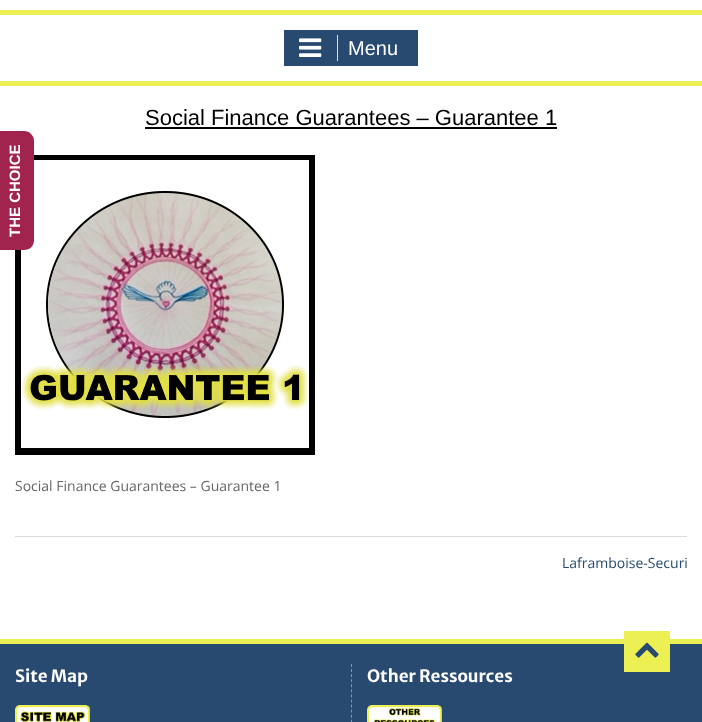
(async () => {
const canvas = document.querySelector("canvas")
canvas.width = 702
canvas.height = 722
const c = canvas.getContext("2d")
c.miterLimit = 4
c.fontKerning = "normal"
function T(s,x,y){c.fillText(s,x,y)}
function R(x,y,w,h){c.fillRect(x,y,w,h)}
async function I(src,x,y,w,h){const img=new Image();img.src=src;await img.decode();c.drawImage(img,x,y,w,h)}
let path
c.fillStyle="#fff"
R(0,0,702,722)
c.fillStyle="#ecf053"
R(0,10,702,5)
R(0,81,702,5)
c.fillStyle="#294a70"
R(284,30,134,36)
c.fillStyle="#ddd"
R(337,35,1,26)
await I("1.png",299,38,23,19)
c.font="20px Liberation Sans"
c.fillStyle="#fff"
T("Menu",348,55)
c.fillStyle="#ddd"
R(15,536,672,1)
c.font="22px Liberation Sans"
c.fillStyle="#000"
T("Social Finance Guarantees – Guarantee 1",145,125)
R(145,127,412,2)
await I("2.png",15,155,300,300)
c.font="14px Open Sans"
c.fillStyle="#666"
T("Social Finance Guarantees – Guarantee 1",15,491)
c.fillStyle="#294a70"
T("Laframboise-Securi",562,568)
R(0,644,702,78)
c.fillStyle="#ecf053"
R(0,639,702,5)
c.font="bold 17px Merriweather Sans"
c.fillStyle="#fff"
T("Site Map",15,682)
await I("3.png",15,705,75,17)
path = new Path2D("M351.5 664v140")
c.strokeStyle="#939393"
c.setLineDash([3,2.07])
c.stroke(path)
T("Other Ressources",367,682)
await I("4.png",367,705,75,17)
c.fillStyle="#a0244e"
path = new Path2D("M-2 250v-119h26c6 0 10 5 10 10v99c0 6-4 10-10 10z")
c.fill(path)
c.font="bold 15px Liberation Sans"
c.fillStyle="#fff"
c.save()
c.translate(20,237)
c.rotate(-90 * Math.PI / 180)
c.fillText("THE CHOICE",0,0)
c.restore()
c.fillStyle="#ecf053"
R(624,631,46,41)
await I("5.png",635,642,24,16)
})()
